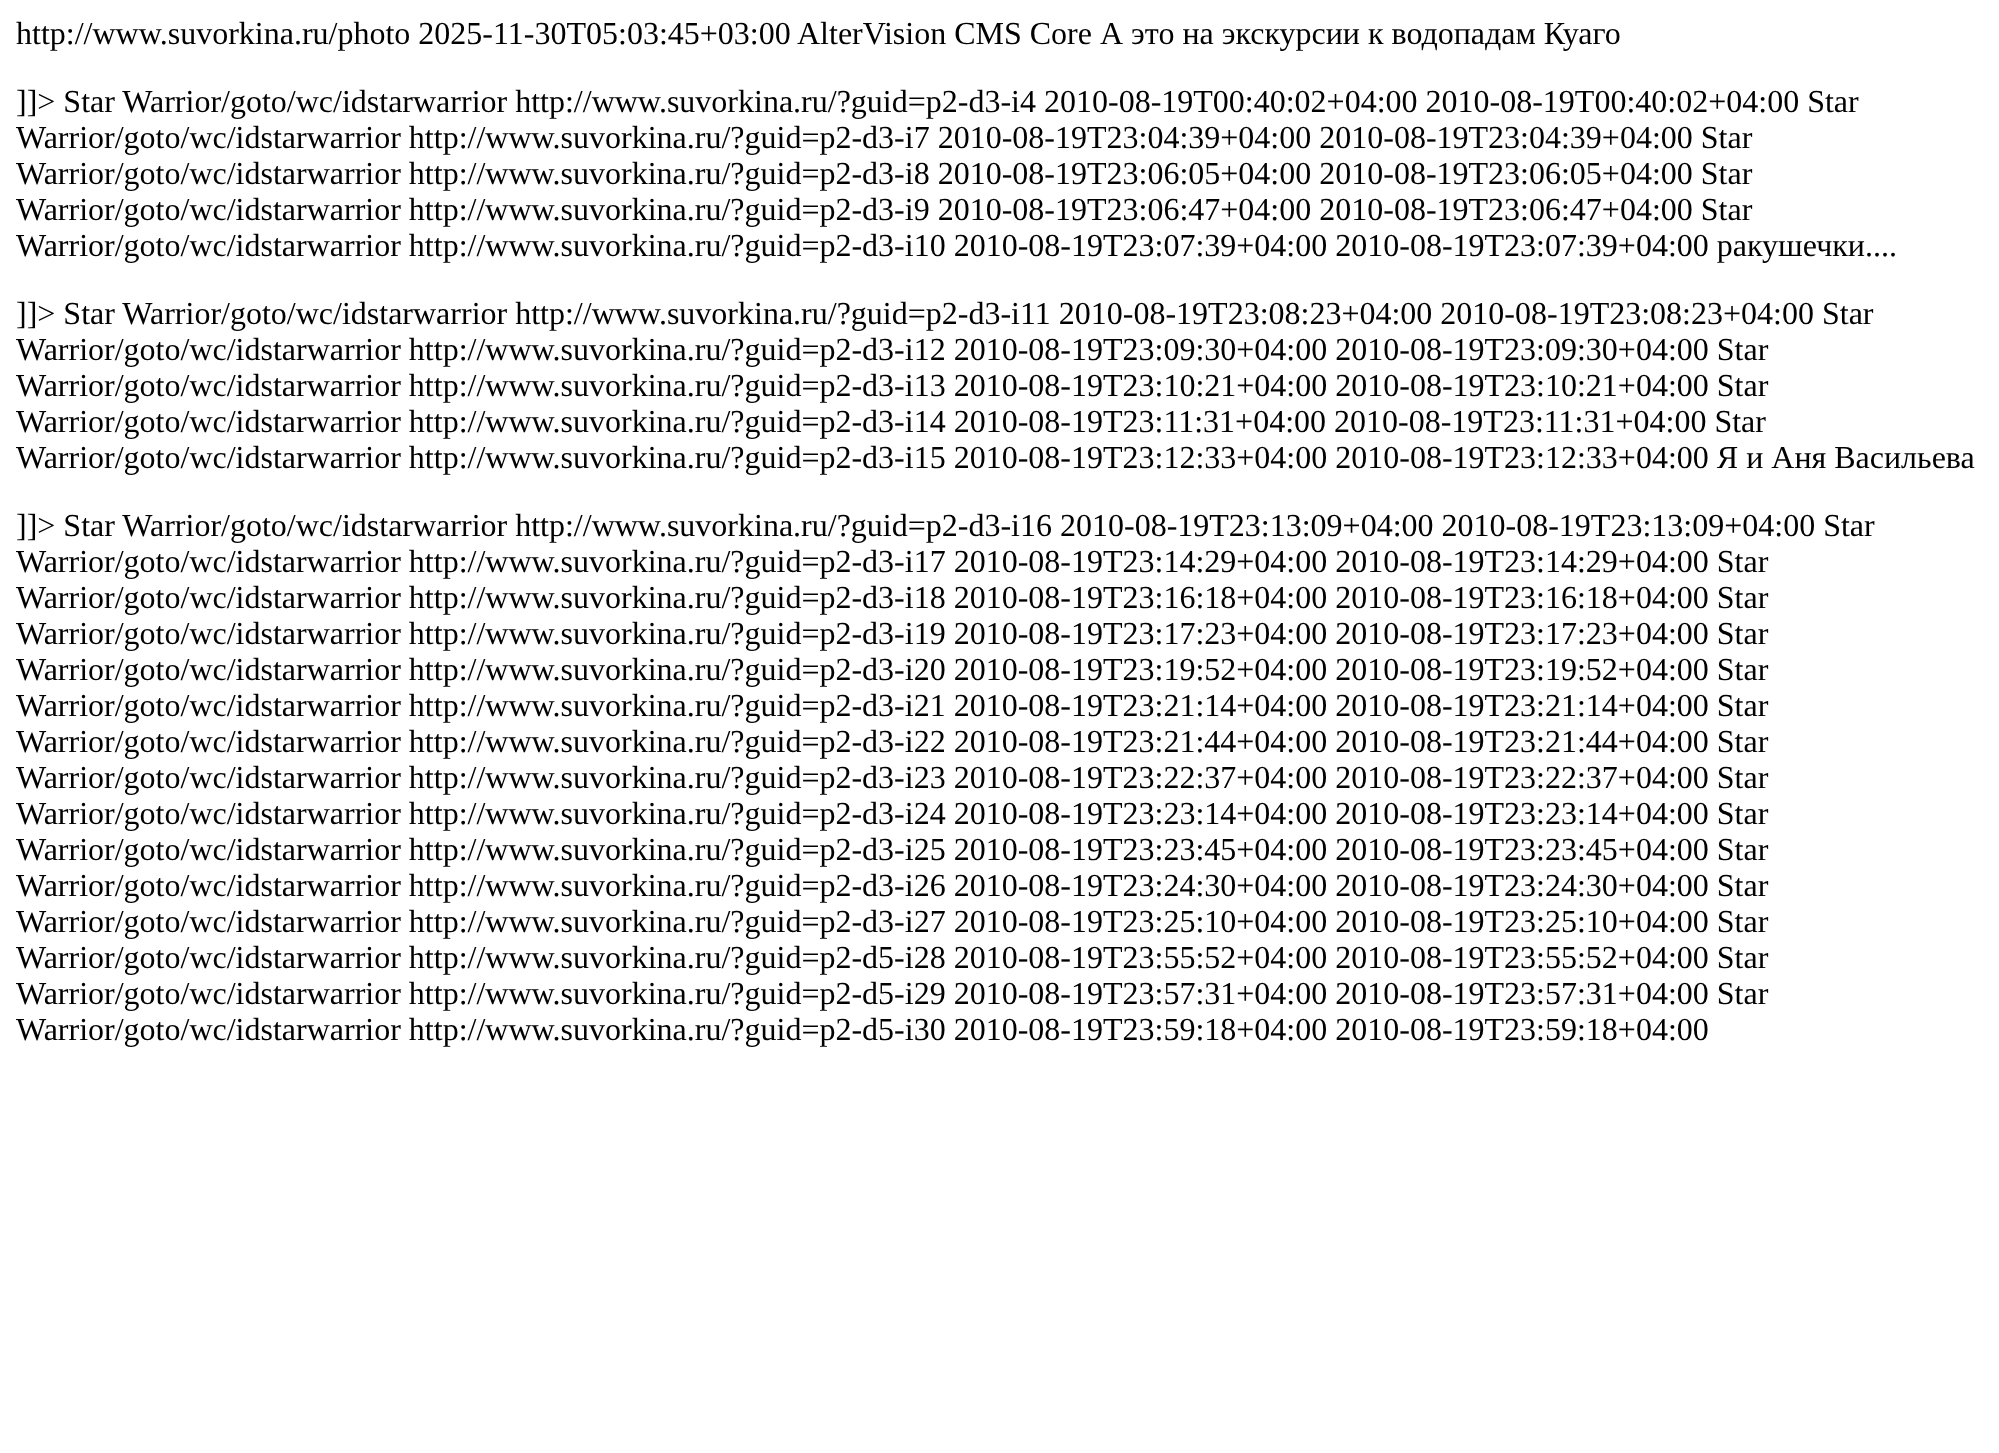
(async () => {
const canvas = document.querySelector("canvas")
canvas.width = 1999
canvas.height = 1453
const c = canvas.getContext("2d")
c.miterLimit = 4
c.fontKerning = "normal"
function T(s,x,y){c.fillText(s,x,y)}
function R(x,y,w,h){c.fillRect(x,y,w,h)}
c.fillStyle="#fff"
R(0,0,1999,1453)
c.font="32px Liberation Serif"
c.fillStyle="#000"
T("http://www.suvorkina.ru/photo 2025-11-30T05:03:45+03:00",16,44)
T("AlterVision CMS Core А это на экскурсии к водопадам Куаго",797,44)
T("]]> Star Warrior/goto/wc/idstarwarrior http://www.suvorkina.ru/?guid=p2-d3-i4 2010-08-19T00:40:02+04:00 2010-08-19T00:40:02+04:00 Star",16,112)
T("Warrior/goto/wc/idstarwarrior http://www.suvorkina.ru/?guid=p2-d3-i7 2010-08-19T23:04:39+04:00 2010-08-19T23:04:39+04:00 Star",16,148)
T("Warrior/goto/wc/idstarwarrior http://www.suvorkina.ru/?guid=p2-d3-i8 2010-08-19T23:06:05+04:00 2010-08-19T23:06:05+04:00 Star",16,184)
T("Warrior/goto/wc/idstarwarrior http://www.suvorkina.ru/?guid=p2-d3-i9 2010-08-19T23:06:47+04:00 2010-08-19T23:06:47+04:00 Star",16,220)
T("Warrior/goto/wc/idstarwarrior http://www.suvorkina.ru/?guid=p2-d3-i10 2010-08-19T23:07:39+04:00 2010-08-19T23:07:39+04:00 ракушечки....",16,256)
T("]]> Star Warrior/goto/wc/idstarwarrior http://www.suvorkina.ru/?guid=p2-d3-i11 2010-08-19T23:08:23+04:00 2010-08-19T23:08:23+04:00 Star",16,324)
T("Warrior/goto/wc/idstarwarrior http://www.suvorkina.ru/?guid=p2-d3-i12 2010-08-19T23:09:30+04:00 2010-08-19T23:09:30+04:00 Star",16,360)
T("Warrior/goto/wc/idstarwarrior http://www.suvorkina.ru/?guid=p2-d3-i13 2010-08-19T23:10:21+04:00 2010-08-19T23:10:21+04:00 Star",16,396)
T("Warrior/goto/wc/idstarwarrior http://www.suvorkina.ru/?guid=p2-d3-i14 2010-08-19T23:11:31+04:00 2010-08-19T23:11:31+04:00 Star",16,432)
T("Warrior/goto/wc/idstarwarrior http://www.suvorkina.ru/?guid=p2-d3-i15 2010-08-19T23:12:33+04:00 2010-08-19T23:12:33+04:00 Я и Аня Васильева",16,468)
T("]]> Star Warrior/goto/wc/idstarwarrior http://www.suvorkina.ru/?guid=p2-d3-i16 2010-08-19T23:13:09+04:00 2010-08-19T23:13:09+04:00 Star",16,536)
T("Warrior/goto/wc/idstarwarrior http://www.suvorkina.ru/?guid=p2-d3-i17 2010-08-19T23:14:29+04:00 2010-08-19T23:14:29+04:00 Star",16,572)
T("Warrior/goto/wc/idstarwarrior http://www.suvorkina.ru/?guid=p2-d3-i18 2010-08-19T23:16:18+04:00 2010-08-19T23:16:18+04:00 Star",16,608)
T("Warrior/goto/wc/idstarwarrior http://www.suvorkina.ru/?guid=p2-d3-i19 2010-08-19T23:17:23+04:00 2010-08-19T23:17:23+04:00 Star",16,644)
T("Warrior/goto/wc/idstarwarrior http://www.suvorkina.ru/?guid=p2-d3-i20 2010-08-19T23:19:52+04:00 2010-08-19T23:19:52+04:00 Star",16,680)
T("Warrior/goto/wc/idstarwarrior http://www.suvorkina.ru/?guid=p2-d3-i21 2010-08-19T23:21:14+04:00 2010-08-19T23:21:14+04:00 Star",16,716)
T("Warrior/goto/wc/idstarwarrior http://www.suvorkina.ru/?guid=p2-d3-i22 2010-08-19T23:21:44+04:00 2010-08-19T23:21:44+04:00 Star",16,752)
T("Warrior/goto/wc/idstarwarrior http://www.suvorkina.ru/?guid=p2-d3-i23 2010-08-19T23:22:37+04:00 2010-08-19T23:22:37+04:00 Star",16,788)
T("Warrior/goto/wc/idstarwarrior http://www.suvorkina.ru/?guid=p2-d3-i24 2010-08-19T23:23:14+04:00 2010-08-19T23:23:14+04:00 Star",16,824)
T("Warrior/goto/wc/idstarwarrior http://www.suvorkina.ru/?guid=p2-d3-i25 2010-08-19T23:23:45+04:00 2010-08-19T23:23:45+04:00 Star",16,860)
T("Warrior/goto/wc/idstarwarrior http://www.suvorkina.ru/?guid=p2-d3-i26 2010-08-19T23:24:30+04:00 2010-08-19T23:24:30+04:00 Star",16,896)
T("Warrior/goto/wc/idstarwarrior http://www.suvorkina.ru/?guid=p2-d3-i27 2010-08-19T23:25:10+04:00 2010-08-19T23:25:10+04:00 Star",16,932)
T("Warrior/goto/wc/idstarwarrior http://www.suvorkina.ru/?guid=p2-d5-i28 2010-08-19T23:55:52+04:00 2010-08-19T23:55:52+04:00 Star",16,968)
T("Warrior/goto/wc/idstarwarrior http://www.suvorkina.ru/?guid=p2-d5-i29 2010-08-19T23:57:31+04:00 2010-08-19T23:57:31+04:00 Star",16,1004)
T("Warrior/goto/wc/idstarwarrior http://www.suvorkina.ru/?guid=p2-d5-i30 2010-08-19T23:59:18+04:00 2010-08-19T23:59:18+04:00",16,1040)
})()
